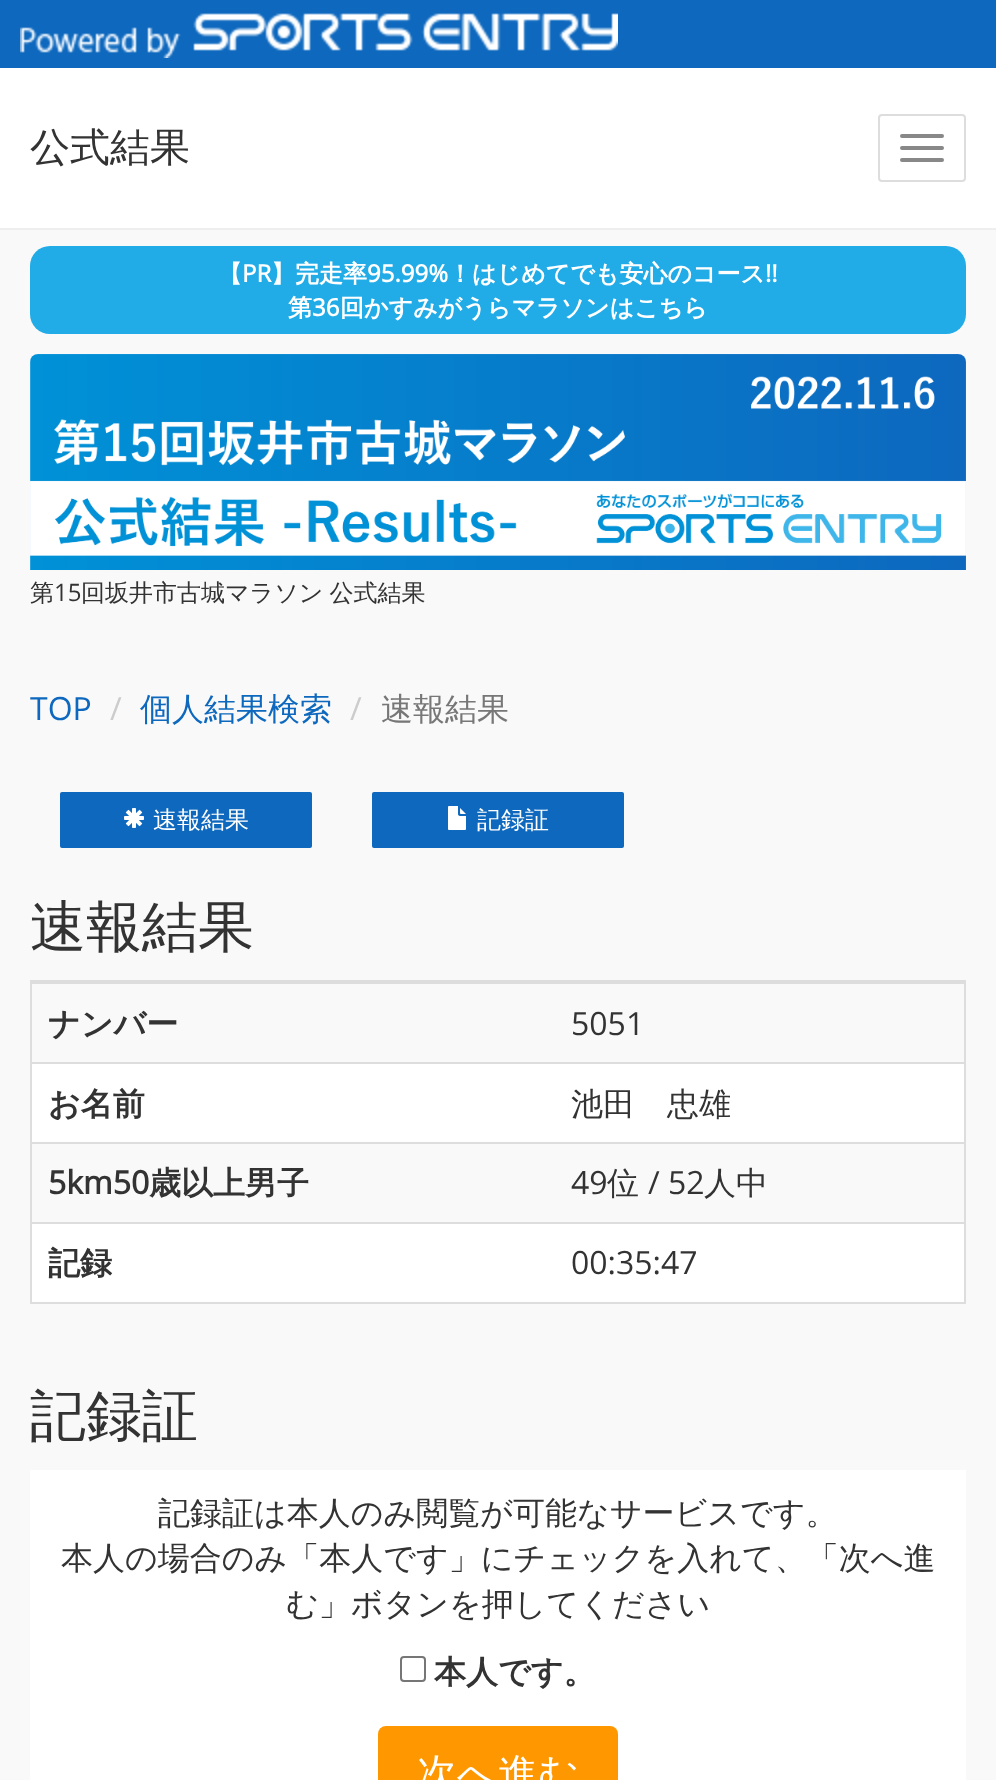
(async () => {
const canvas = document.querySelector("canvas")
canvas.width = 996
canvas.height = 1780
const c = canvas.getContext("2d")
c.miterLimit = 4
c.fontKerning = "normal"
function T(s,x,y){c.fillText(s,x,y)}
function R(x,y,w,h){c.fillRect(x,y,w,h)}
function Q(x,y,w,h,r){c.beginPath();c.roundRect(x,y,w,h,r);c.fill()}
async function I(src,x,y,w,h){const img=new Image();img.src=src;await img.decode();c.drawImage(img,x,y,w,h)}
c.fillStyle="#f9f9f9"
R(0,0,996,1780)
c.fillStyle="#fff"
R(0,68,996,160)
c.fillStyle="#eee"
R(0,228,996,2)
c.fillStyle="#0d68be"
R(0,0,996,68)
await I("1.png",20,13,598,45)
c.font="500 40px WenQuanYi Zen Hei"
c.fillStyle="#333"
T("公式結果",30,161)
c.beginPath()
c.roundRect(879,115,86,66,3)
c.strokeStyle="#ddd"
c.lineWidth=2
c.stroke()
c.fillStyle="#888"
Q(900,134,44,4,2)
Q(900,146,44,4,2)
Q(900,158,44,4,2)
c.fillStyle="#21abe7"
Q(30,246,936,88,20)
c.font="bold 24px WenQuanYi Zen Hei"
c.fillStyle="#fff"
T("【",218,282)
c.font="bold 24px Open Sans"
T("PR",242,282)
c.font="bold 24px WenQuanYi Zen Hei"
T("】完走率",271,282)
c.font="bold 24px Open Sans"
T("95.99%",367,282)
c.font="bold 24px WenQuanYi Zen Hei"
T("！はじめてでも安心のコース",448,282)
c.font="bold 24px Open Sans"
T("!!",765,282)
c.font="bold 24px WenQuanYi Zen Hei"
T("第",288,316)
c.font="bold 24px Open Sans"
T("36",312,316)
c.font="bold 24px WenQuanYi Zen Hei"
T("回かすみがうらマラソンはこちら",340,316)
await I("2.png",30,354,936,216)
c.font="500 24px WenQuanYi Zen Hei"
c.fillStyle="#333"
T("第",30,601)
c.font="24px Open Sans"
T("15",54,601)
c.wordSpacing="-1px"
c.font="500 24px WenQuanYi Zen Hei"
T("回坂井市古城マラソン 公式結果",81,601)
c.wordSpacing="0px"
c.font="32px Open Sans"
c.fillStyle="#0d68be"
T("TOP",30,720)
c.fillStyle="#ccc"
T("/",110,720)
c.font="500 32px WenQuanYi Zen Hei"
c.fillStyle="#0d68be"
T("個人結果検索",140,720)
c.font="32px Open Sans"
c.fillStyle="#ccc"
T("/",350,720)
c.font="500 32px WenQuanYi Zen Hei"
c.fillStyle="#777"
T("速報結果",381,720)
c.fillStyle="#0d68be"
Q(60,792,252,56,2)
await I("3.png",124,808,20,20)
c.font="500 24px WenQuanYi Zen Hei"
c.fillStyle="#fff"
T("速報結果",153,828)
c.fillStyle="#0d68be"
Q(372,792,252,56,2)
await I("4.png",448,806,18,24)
c.fillStyle="#fff"
T("記録証",477,828)
c.font="500 56px WenQuanYi Zen Hei"
c.fillStyle="#333"
T("速報結果",30,946)
c.strokeRect(31,981,934,322)
c.fillStyle="#fff"
R(32,1064,932,238)
c.font="bold 32px WenQuanYi Zen Hei"
c.fillStyle="#333"
T("ナンバー",48,1035)
c.fillStyle="#ddd"
R(32,982,932,2)
c.font="32px Open Sans"
c.fillStyle="#333"
T("5051",571,1035)
c.font="bold 32px WenQuanYi Zen Hei"
T("お名前",48,1115)
c.fillStyle="#ddd"
R(32,1062,932,2)
c.font="500 32px WenQuanYi Zen Hei"
c.fillStyle="#333"
T("池田　忠雄",571,1115)
c.fillStyle="#f9f9f9"
R(32,1144,932,78)
c.font="bold 32px Open Sans"
c.fillStyle="#333"
T("5km50",48,1194)
c.font="bold 32px WenQuanYi Zen Hei"
T("歳以上男子",149,1194)
c.fillStyle="#ddd"
R(32,1142,932,2)
c.font="32px Open Sans"
c.fillStyle="#333"
T("49",571,1194)
c.font="500 32px WenQuanYi Zen Hei"
T("位",607,1194)
c.font="32px Open Sans"
T("/ 52",648,1194)
c.font="500 32px WenQuanYi Zen Hei"
T("人中",704,1194)
c.font="bold 32px WenQuanYi Zen Hei"
T("記録",48,1274)
c.fillStyle="#ddd"
R(32,1222,932,2)
c.font="32px Open Sans"
c.fillStyle="#333"
T("00:35:47",571,1274)
c.font="500 56px WenQuanYi Zen Hei"
T("記録証",30,1435)
c.fillStyle="#fff"
R(30,1470,936,310)
c.font="500 32px WenQuanYi Zen Hei"
c.fillStyle="#333"
T("記録証は本人のみ閲覧が可能なサービスです。",158,1524)
T("本人の場合のみ「本人です」にチェックを入れて、「次へ進",61,1569)
T("む」ボタンを押してください",286,1615)
c.beginPath()
c.roundRect(401,1657,24,24,3)
c.strokeStyle="#767676"
c.stroke()
c.font="bold 32px WenQuanYi Zen Hei"
T("本人です。",434,1683)
c.fillStyle="#ff9800"
Q(378,1726,240,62,8)
c.font="500 40px WenQuanYi Zen Hei"
c.fillStyle="#fff"
T("次へ進む",417,1787)
})()
